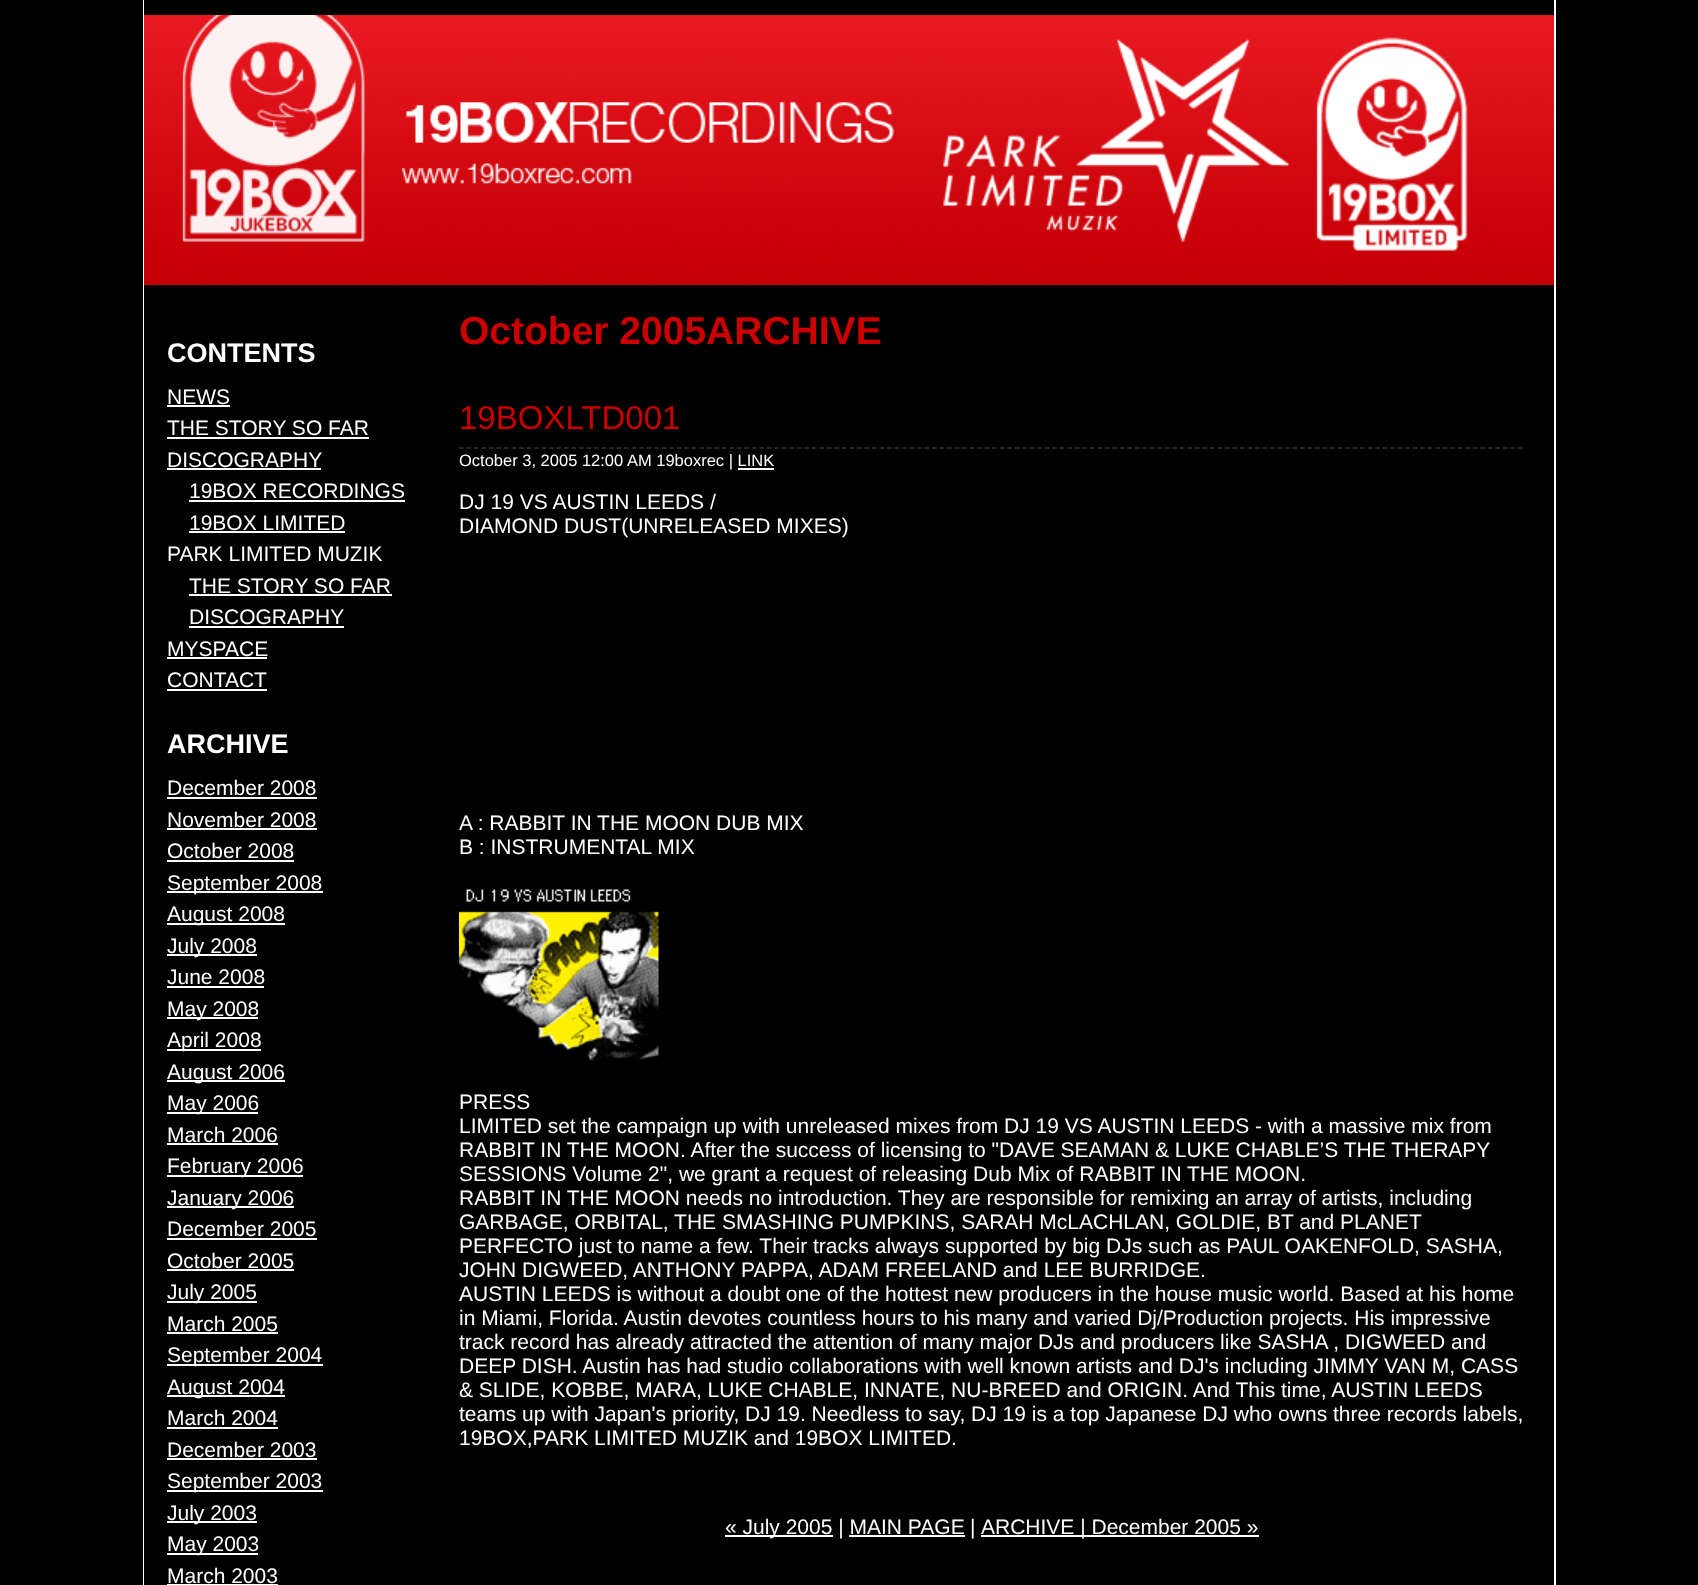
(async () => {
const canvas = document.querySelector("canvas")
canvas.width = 1698
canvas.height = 1585
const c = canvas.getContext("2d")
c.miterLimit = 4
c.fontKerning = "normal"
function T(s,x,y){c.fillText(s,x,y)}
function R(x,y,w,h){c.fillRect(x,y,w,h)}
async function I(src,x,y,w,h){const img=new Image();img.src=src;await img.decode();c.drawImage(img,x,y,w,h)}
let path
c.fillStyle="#000"
R(0,0,1698,1585)
c.fillStyle="#fff"
R(1554,0,2,1585)
R(143,0,1,1585)
await I("1.png",144,15,1410,270)
c.font="bold 27px Liberation Sans"
T("CONTENTS",167,362)
c.font="21px Liberation Sans"
T("NEWS",167,404)
R(167,405,63,2)
T("THE STORY SO FAR",167,435)
R(167,437,202,2)
T("DISCOGRAPHY",167,467)
R(167,468,154,2)
T("19BOX RECORDINGS",189,498)
R(189,500,216,2)
T("19BOX LIMITED",189,530)
R(189,531,156,2)
T("PARK LIMITED MUZIK",167,561)
T("THE STORY SO FAR",189,593)
R(189,594,203,2)
T("DISCOGRAPHY",189,624)
R(189,626,155,2)
T("MYSPACE",167,656)
R(167,657,100,2)
T("CONTACT",167,687)
R(167,689,100,2)
c.font="bold 27px Liberation Sans"
T("ARCHIVE",167,753)
c.font="21px Liberation Sans"
T("December 2008",167,795)
R(167,797,150,2)
T("November 2008",167,827)
R(167,828,150,2)
T("October 2008",167,858)
R(167,860,127,2)
R(167,891,156,2)
T("September 2008",167,890)
R(167,923,118,2)
T("August 2008",167,921)
R(167,954,90,2)
T("July 2008",167,953)
T("June 2008",167,984)
R(167,986,97,2)
R(167,1017,91,2)
T("May 2008",167,1016)
R(167,1049,94,2)
T("April 2008",167,1047)
R(167,1080,118,2)
T("August 2006",167,1079)
R(167,1112,91,2)
T("May 2006",167,1110)
T("March 2006",167,1142)
R(167,1143,111,2)
R(167,1175,136,2)
T("February 2006",167,1173)
R(167,1206,127,2)
T("January 2006",167,1205)
T("December 2005",167,1236)
R(167,1238,150,2)
T("October 2005",167,1268)
R(167,1269,127,2)
R(167,1301,90,2)
T("July 2005",167,1299)
T("March 2005",167,1331)
R(167,1332,111,2)
R(167,1364,156,2)
T("September 2004",167,1362)
R(167,1395,118,2)
T("August 2004",167,1394)
T("March 2004",167,1425)
R(167,1427,111,2)
T("December 2003",167,1457)
R(167,1458,150,2)
R(167,1490,156,2)
T("September 2003",167,1488)
R(167,1521,90,2)
T("July 2003",167,1520)
R(167,1553,91,2)
T("May 2003",167,1551)
T("March 2003",167,1583)
R(167,1584,111,1)
c.font="bold 39px Liberation Sans"
c.fillStyle="#c00"
T("October 2005ARCHIVE",459,344)
c.font="33px Liberation Sans"
T("19BOXLTD001",459,429)
path = new Path2D("M459 448h1065")
c.strokeStyle="#333"
c.lineWidth=1.5
c.setLineDash([4.5,3.01])
c.stroke(path)
c.font="16.5px Liberation Sans"
c.fillStyle="#fff"
T("October 3, 2005 12:00 AM 19boxrec | LINK",459,466)
R(738,468,36,2)
c.font="21px Liberation Sans"
T("DJ 19 VS AUSTIN LEEDS /",459,509)
T("DIAMOND DUST(UNRELEASED MIXES)",459,533)
T("A : RABBIT IN THE MOON DUB MIX",459,830)
T("B : INSTRUMENTAL MIX",459,854)
await I("2.png",459,889,200,172)
T("PRESS",459,1109)
T("LIMITED set the campaign up with unreleased mixes from DJ 19 VS AUSTIN LEEDS - with a massive mix from",459,1133)
T("RABBIT IN THE MOON. After the success of licensing to \"DAVE SEAMAN & LUKE CHABLE’S THE THERAPY",459,1157)
T("SESSIONS Volume 2\", we grant a request of releasing Dub Mix of RABBIT IN THE MOON.",459,1181)
T("RABBIT IN THE MOON needs no introduction. They are responsible for remixing an array of artists, including",459,1205)
T("GARBAGE, ORBITAL, THE SMASHING PUMPKINS, SARAH McLACHLAN, GOLDIE, BT and PLANET",459,1229)
T("PERFECTO just to name a few. Their tracks always supported by big DJs such as PAUL OAKENFOLD, SASHA,",459,1253)
T("JOHN DIGWEED, ANTHONY PAPPA, ADAM FREELAND and LEE BURRIDGE.",459,1277)
T("AUSTIN LEEDS is without a doubt one of the hottest new producers in the house music world. Based at his home",459,1301)
T("in Miami, Florida. Austin devotes countless hours to his many and varied Dj/Production projects. His impressive",459,1325)
T("track record has already attracted the attention of many major DJs and producers like SASHA , DIGWEED and",459,1349)
T("DEEP DISH. Austin has had studio collaborations with well known artists and DJ's including JIMMY VAN M, CASS",459,1373)
T("& SLIDE, KOBBE, MARA, LUKE CHABLE, INNATE, NU-BREED and ORIGIN. And This time, AUSTIN LEEDS",459,1397)
T("teams up with Japan's priority, DJ 19. Needless to say, DJ 19 is a top Japanese DJ who owns three records labels,",459,1421)
T("19BOX,PARK LIMITED MUZIK and 19BOX LIMITED.",459,1445)
R(725,1535,108,2)
T("« July 2005 | MAIN PAGE",725,1534)
T("|",970,1534)
R(981,1535,278,2)
T("ARCHIVE | December 2005 »",981,1534)
R(849,1535,116,2)
})()
